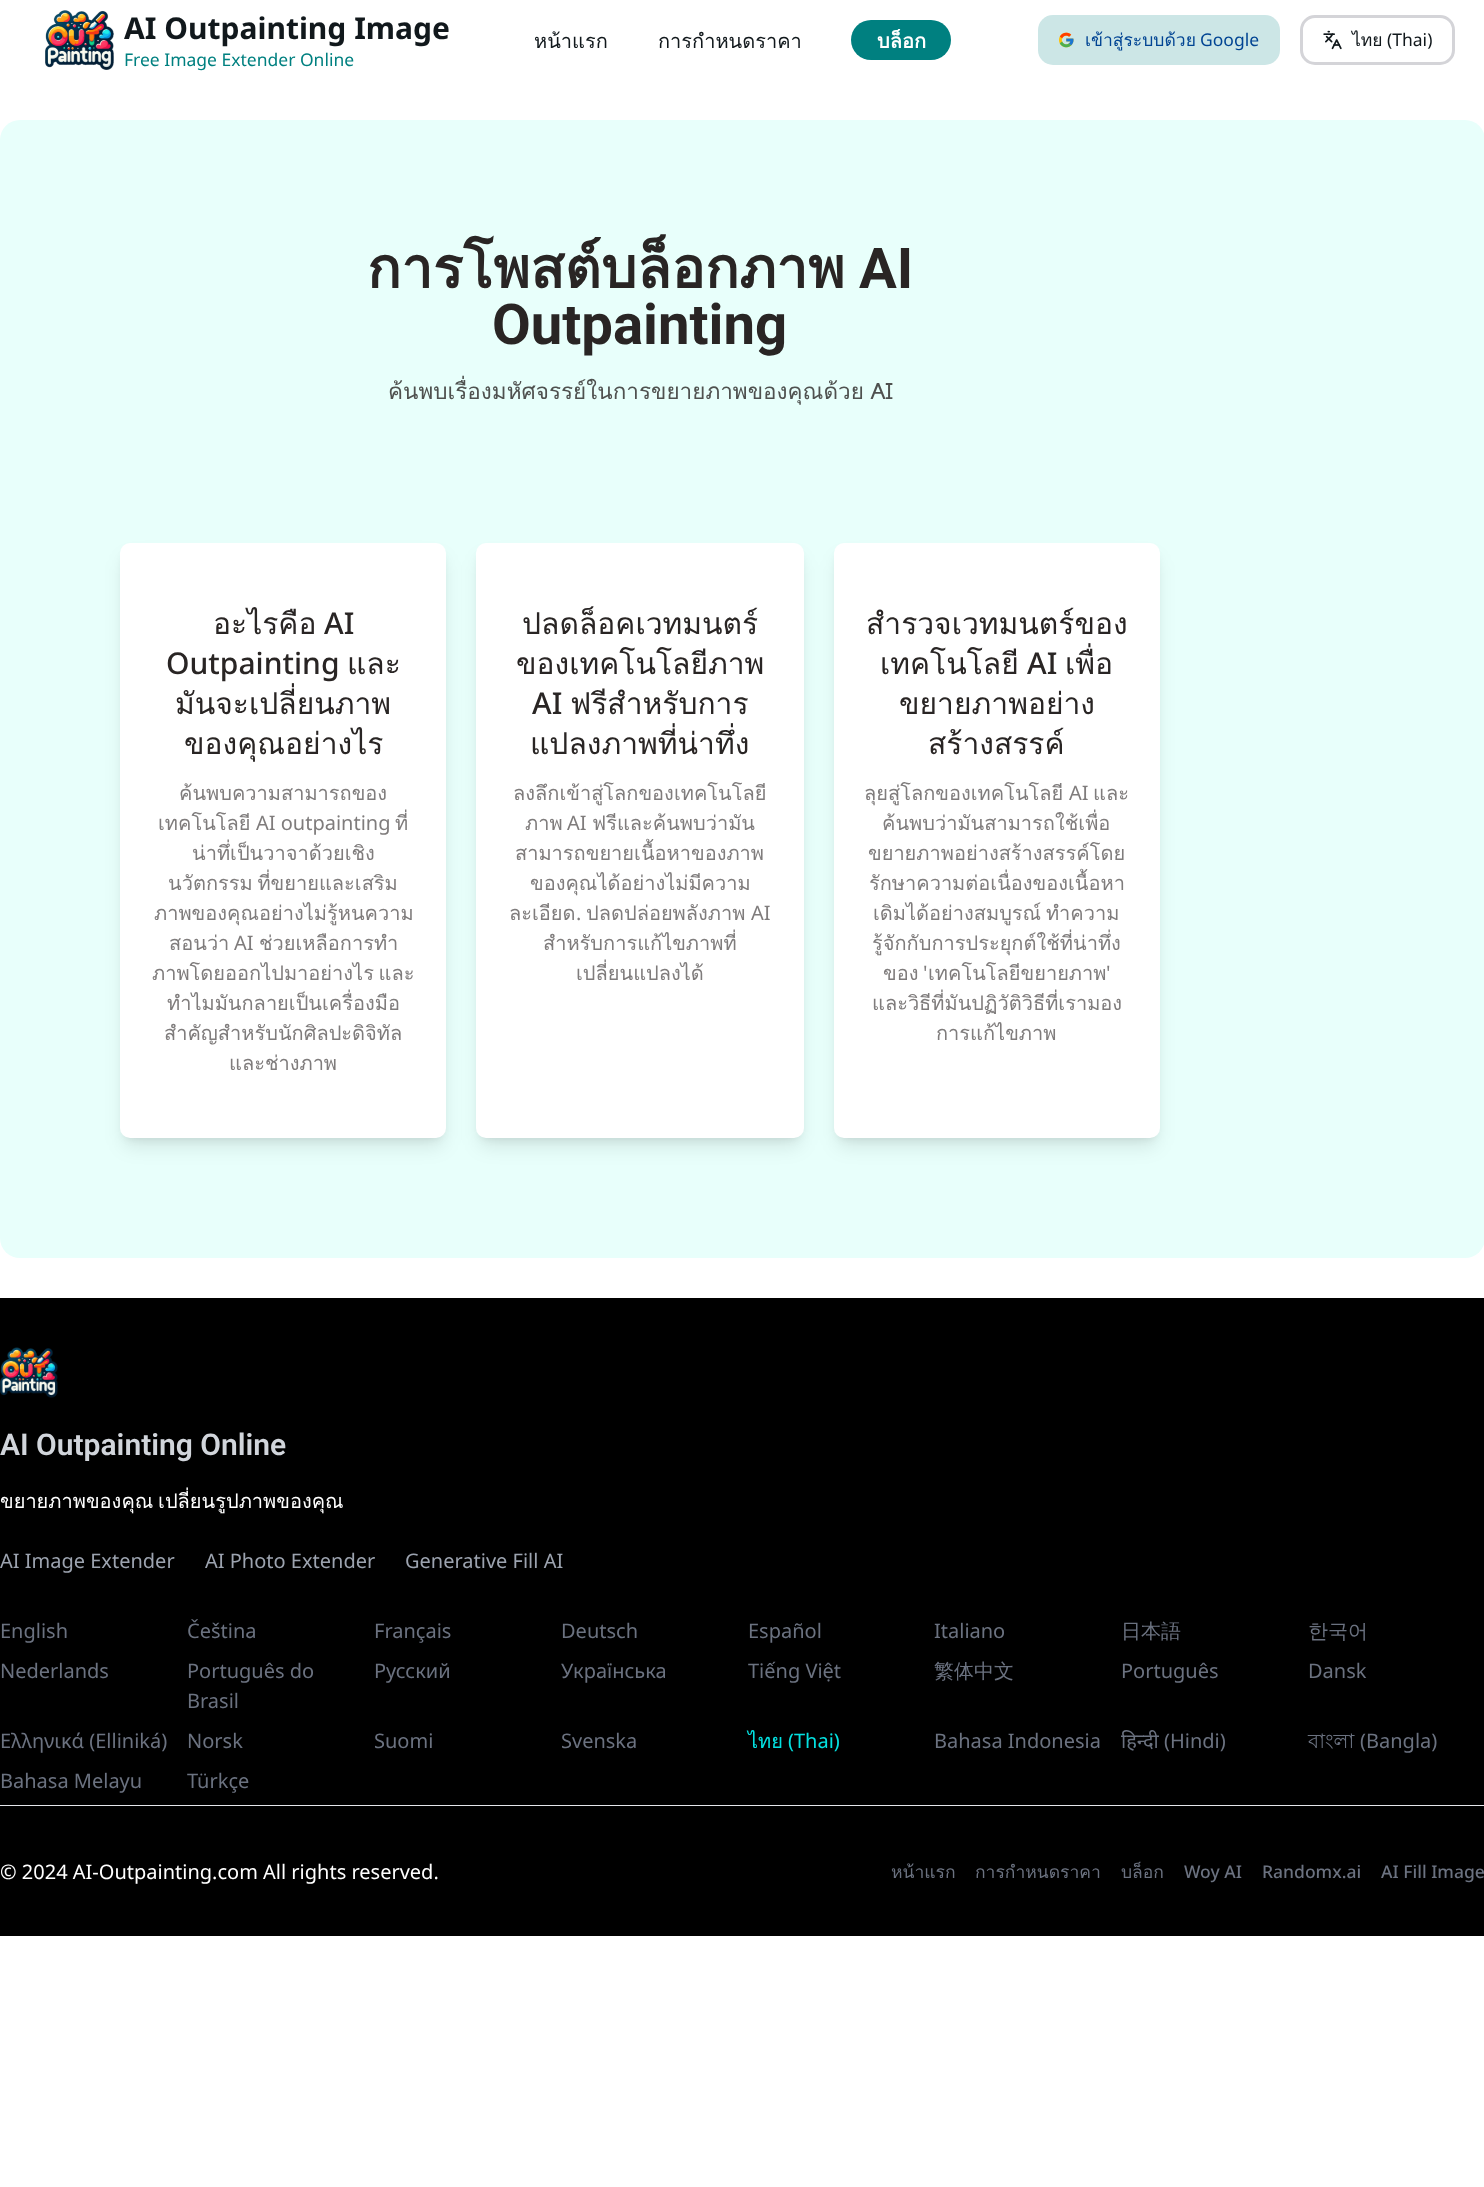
(async () => {
const canvas = document.querySelector("canvas")
canvas.width = 1484
canvas.height = 2187
const c = canvas.getContext("2d")
c.miterLimit = 4
c.fontKerning = "normal"
function T(s,x,y){c.fillText(s,x,y)}
function R(x,y,w,h){c.fillRect(x,y,w,h)}
function Q(x,y,w,h,r){c.beginPath();c.roundRect(x,y,w,h,r);c.fill()}
async function I(src,x,y,w,h){const img=new Image();img.src=src;await img.decode();c.drawImage(img,x,y,w,h)}
c.fillStyle="#fff"
R(0,0,1484,2187)
await I("1.png",45,10,69,60)
c.font="bold 30px Noto Sans"
c.fillStyle="#11181c"
T("AI Outpainting Image",124,39)
c.font="17.5px Noto Sans"
c.fillStyle="#008080"
T("Free Image Extender Online",124,66)
c.font="20px Loma"
c.fillStyle="#11181c"
T("หน้าแรก",534,48)
T("การกำหนดราคา",658,48)
c.fillStyle="#008080"
Q(851,20,100,40,20)
c.font="bold 20px Loma"
c.fillStyle="#fff"
T("บล็อก",877,48)
c.fillStyle="#cce6e6"
Q(1038,15,242,50,15)
await I("2.png",1059,32,15,16)
c.font="17.5px Loma"
c.fillStyle="#004493"
T("เข้าสู่ระบบด้วย",1085,46)
c.font="17.5px Noto Sans"
T("Google",1200,46)
c.beginPath()
c.roundRect(1301.5,16.5,152,47,13.5)
c.strokeStyle="#d4d4d8"
c.lineWidth=3
c.stroke()
await I("3.png",1323,30,19,20)
c.font="17.5px Loma"
c.fillStyle="#11181c"
T("ไทย",1352,46)
c.font="17.5px Noto Sans"
T("(Thai)",1387,46)
c.fillStyle="#e8fffb"
Q(0,120,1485,1138,20)
c.font="bold 56.25px Loma"
c.fillStyle="#292524"
T("การโพสต์บล็อกภาพ",367,288)
c.font="bold 56.25px Roboto"
T("AI",859,288)
T("Outpainting",492,344)
c.wordSpacing="-1px"
c.font="22.5px Loma"
c.fillStyle="#4f514f"
T("ค้นพบเรื่องมหัศจรรย์ในการขยายภาพของคุณด้วย AI",388,399)
c.fillStyle="#0000001a"
c.filter="blur(4px)"
c.beginPath()
c.roundRect(125,553,316,585,5)
c.fill()
c.filter="none"
c.filter="blur(9.5px)"
c.beginPath()
c.roundRect(124,559,319,587,6)
c.fill()
c.filter="none"
c.fillStyle="#fff"
Q(120,543,326,595,10)
c.wordSpacing="0px"
c.font="30px Loma"
c.fillStyle="#292524"
T("อะไรคือ",213,634)
c.font="500 30px Noto Sans"
T("AI",324,634)
T("Outpainting",166,674)
c.font="30px Loma"
T("และ",347,674)
T("มันจะเปลี่ยนภาพ",175,714)
T("ของคุณอย่างไร",184,754)
c.font="20px Loma"
c.fillStyle="#7f7c7c"
T("ค้นพบความสามารถของ",179,800)
T("เทคโนโลยี",158,830)
c.font="20px Noto Sans"
T("AI outpainting",256,830)
c.font="20px Loma"
T("ที่",395,830)
T("น่าทึ่เป็นวาจาด้วยเชิง",192,860)
c.wordSpacing="-2px"
T("นวัตกรรม ที่ขยายและเสริม",168,890)
c.wordSpacing="0px"
T("ภาพของคุณอย่างไม่รู้หนความ",154,920)
T("สอนว่า",169,950)
c.font="20px Noto Sans"
T("AI",234,950)
c.font="20px Loma"
T("ช่วยเหลือการทำ",259,950)
c.wordSpacing="-2px"
T("ภาพโดยออกไปมาอย่างไร และ",152,980)
c.wordSpacing="0px"
T("ทำไมมันกลายเป็นเครื่องมือ",167,1010)
T("สำคัญสำหรับนักศิลปะดิจิทัล",164,1040)
T("และช่างภาพ",229,1070)
c.fillStyle="#0000001a"
c.filter="blur(4px)"
c.beginPath()
c.roundRect(481,553,318,585,5)
c.fill()
c.filter="none"
c.filter="blur(9.5px)"
c.beginPath()
c.roundRect(480,559,320,587,6)
c.fill()
c.filter="none"
c.fillStyle="#fff"
Q(476,543,328,595,10)
c.font="30px Loma"
c.fillStyle="#292524"
T("ปลดล็อคเวทมนตร์",522,634)
T("ของเทคโนโลยีภาพ",516,674)
c.font="500 30px Noto Sans"
T("AI",532,714)
c.font="30px Loma"
T("ฟรีสำหรับการ",570,714)
T("แปลงภาพที่น่าทึ่ง",530,754)
c.font="20px Loma"
c.fillStyle="#7f7c7c"
T("ลงลึกเข้าสู่โลกของเทคโนโลยี",513,800)
T("ภาพ",525,830)
c.font="20px Noto Sans"
T("AI",567,830)
c.font="20px Loma"
T("ฟรีและค้นพบว่ามัน",592,830)
T("สามารถขยายเนื้อหาของภาพ",515,860)
T("ของคุณได้อย่างไม่มีความ",530,890)
T("ละเอียด",509,920)
c.font="20px Noto Sans"
T(".",576,920)
c.font="20px Loma"
T("ปลดปล่อยพลังภาพ",586,920)
c.font="20px Noto Sans"
T("AI",751,920)
c.font="20px Loma"
T("สำหรับการแก้ไขภาพที่",543,950)
T("เปลี่ยนแปลงได้",576,980)
c.fillStyle="#0000001a"
c.filter="blur(4px)"
c.beginPath()
c.roundRect(839,553,316,585,5)
c.fill()
c.filter="none"
c.filter="blur(9.5px)"
c.beginPath()
c.roundRect(838,559,318,587,6)
c.fill()
c.filter="none"
c.fillStyle="#fff"
Q(834,543,326,595,10)
c.font="30px Loma"
c.fillStyle="#292524"
T("สำรวจเวทมนตร์ของ",866,634)
T("เทคโนโลยี",880,674)
c.font="500 30px Noto Sans"
T("AI",1027,674)
c.font="30px Loma"
T("เพื่อ",1065,674)
T("ขยายภาพอย่าง",899,714)
T("สร้างสรรค์",928,754)
c.font="20px Loma"
c.fillStyle="#7f7c7c"
T("ลุยสู่โลกของเทคโนโลยี",864,800)
c.font="20px Noto Sans"
T("AI",1069,800)
c.font="20px Loma"
T("และ",1093,800)
T("ค้นพบว่ามันสามารถใช้เพื่อ",882,830)
T("ขยายภาพอย่างสร้างสรรค์โดย",868,860)
T("รักษาความต่อเนื่องของเนื้อหา",869,890)
c.wordSpacing="-2px"
T("เดิมได้อย่างสมบูรณ์ ทำความ",873,920)
c.wordSpacing="0px"
T("รู้จักกับการประยุกต์ใช้ที่น่าทึ่ง",872,950)
T("ของ",883,980)
c.font="20px Noto Sans"
T("'",923,980)
c.font="20px Loma"
T("เทคโนโลยีขยายภาพ",928,980)
c.font="20px Noto Sans"
T("'",1106,980)
c.font="20px Loma"
T("และวิธีที่มันปฏิวัติวิธีที่เรามอง",872,1010)
T("การแก้ไขภาพ",936,1040)
c.fillStyle="#000"
R(0,1298,1484,638)
await I("4.png",0,1347,58,51)
c.font="600 30px Roboto"
c.fillStyle="#d1d5db"
T("AI Outpainting Online",0,1455)
c.wordSpacing="-2px"
c.font="20px Loma"
c.fillStyle="#fff"
T("ขยายภาพของคุณ เปลี่ยนรูปภาพของคุณ",0,1508)
c.wordSpacing="0px"
c.font="20px Noto Sans"
c.fillStyle="#9ca3af"
T("AI Image Extender",0,1568)
T("AI Photo Extender",205,1568)
T("Generative Fill AI",405,1568)
c.fillStyle="#6b7280"
T("English",0,1638)
T("Čeština",187,1638)
T("Français",374,1638)
T("Deutsch",561,1638)
T("Español",748,1638)
T("Italiano",934,1638)
c.font="500 20px WenQuanYi Zen Hei"
T("日本語",1121,1638)
T("한국어",1308,1638)
c.font="20px Noto Sans"
T("Nederlands",0,1678)
T("Português do",187,1678)
T("Brasil",187,1708)
T("Русский",374,1678)
T("Українська",561,1678)
T("Tiếng Việt",748,1678)
c.font="500 20px WenQuanYi Zen Hei"
T("繁体中文",934,1678)
c.font="20px Noto Sans"
T("Português",1121,1678)
T("Dansk",1308,1678)
T("Ελληνικά (Elliniká)",0,1748)
T("Norsk",187,1748)
T("Suomi",374,1748)
T("Svenska",561,1748)
c.font="20px Loma"
c.fillStyle="#03e0e0"
T("ไทย",748,1748)
c.font="20px Noto Sans"
T("(Thai)",788,1748)
c.fillStyle="#6b7280"
T("Bahasa Indonesia",934,1748)
T("हिन्दी (Hindi)",1121,1748)
c.font="20px Lohit Bengali"
T("বাংলা",1308,1748)
c.font="20px Noto Sans"
T("(Bangla)",1360,1748)
T("Bahasa Melayu",0,1788)
T("Türkçe",187,1788)
c.fillStyle="#e5e7eb"
R(0,1805,1484,1)
c.fillStyle="#fff"
T("© 2024 AI-Outpainting.com All rights reserved.",0,1879)
c.font="17.5px Loma"
c.fillStyle="#6b7280"
T("หน้าแรก",891,1878)
T("การกำหนดราคา",975,1878)
T("บล็อก",1121,1878)
c.font="500 17.5px Noto Sans"
T("Woy AI",1184,1878)
T("Randomx.ai",1262,1878)
T("AI Fill Image",1381,1878)
})()
